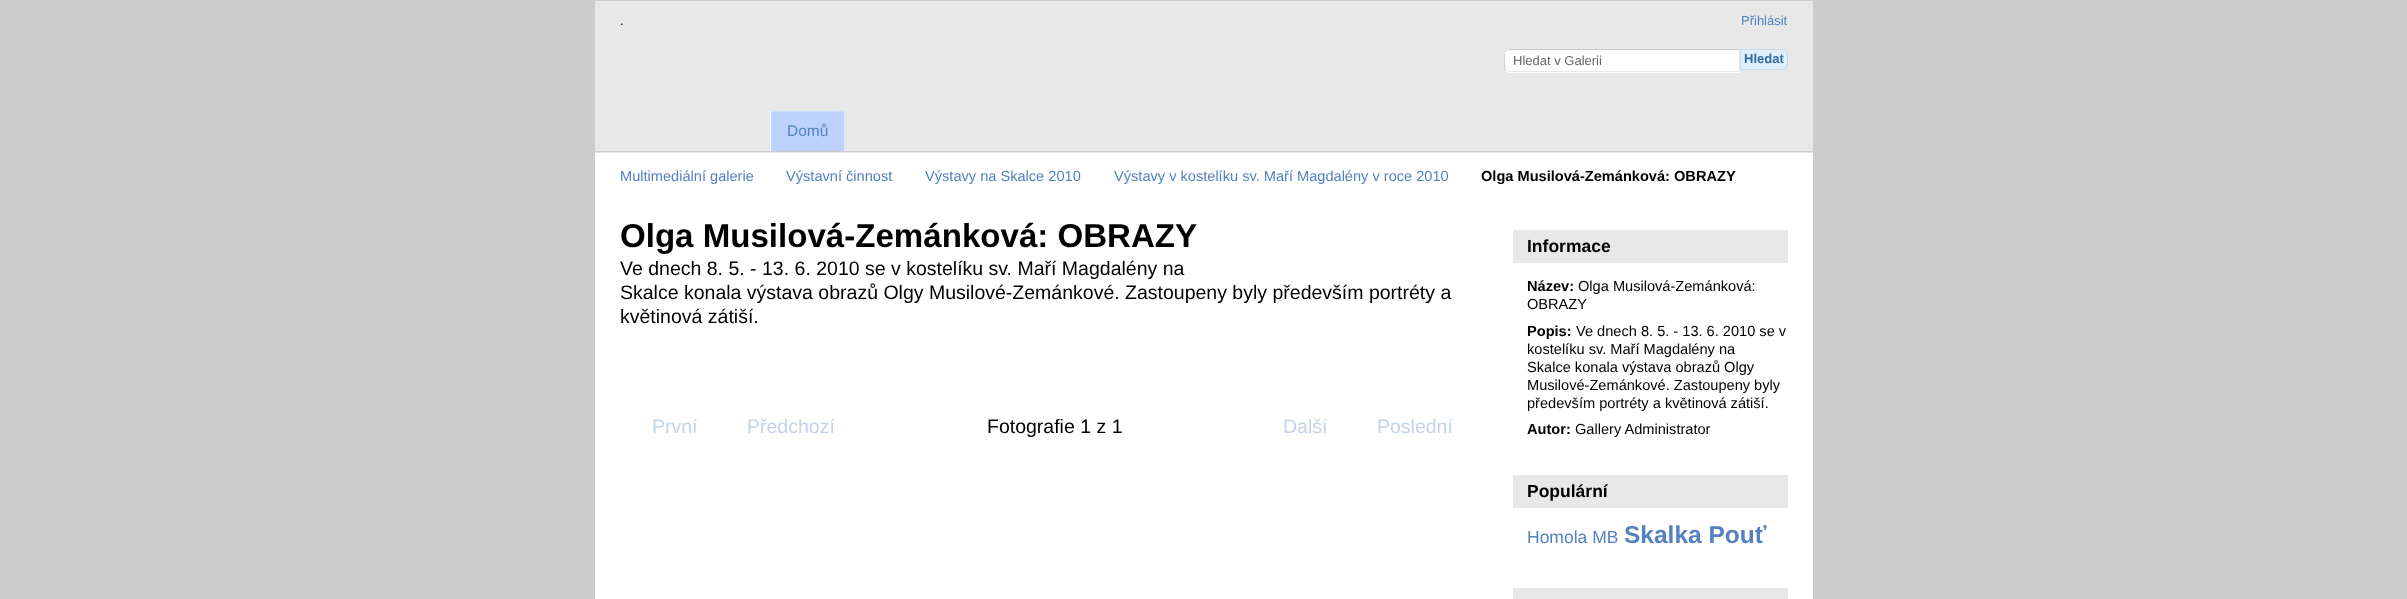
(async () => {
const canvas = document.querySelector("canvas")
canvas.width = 2407
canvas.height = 599
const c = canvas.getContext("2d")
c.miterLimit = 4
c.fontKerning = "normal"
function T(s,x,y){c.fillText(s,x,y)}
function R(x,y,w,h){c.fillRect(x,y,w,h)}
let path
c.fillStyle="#ccc"
R(0,0,2407,599)
c.fillStyle="#fff"
R(595,153,1218,446)
c.fillStyle="#e8e8e8"
R(595,1,1218,152)
c.fillStyle="#ccc"
R(595,151,1218,1)
c.font="13px Liberation Sans"
c.fillStyle="#000"
T(".",620,25)
c.fillStyle="#5382bf"
T("Přihlásit",1741,25)
c.fillStyle="#fff"
c.beginPath()
c.roundRect(1504,49,236,24,[6,0,0,6])
c.fill()
c.fillStyle="#ccc"
path = new Path2D("M1510 49c-2 0-3 1-4 2c1 0 2-1 4-1h229l1-1z")
c.fill(path)
c.fillStyle="#e8e8e8"
path = new Path2D("M1740 72v-23l-1 1v21h-.5l1 1z")
c.fill(path)
path = new Path2D("M1740 72h-231l-3-2h1c0 1 1 1 3 1h228z")
c.fill(path)
c.fillStyle="#ccc"
path = new Path2D("M1506 51c-2.5 2.5-2 6-2 9.5c0 3-1 7.5 2 10l.5-1c-2-2-2-12-1.5-14.5c0-1.5 .5-2.5 1.5-3.5z")
c.fill(path)
c.fillStyle="#666"
T("Hledat v Galerii",1513,65)
c.fillStyle="#dfeffc"
c.beginPath()
c.roundRect(1740.5,49.5,47,20,[0,5.5,5.5,0])
c.fill()
c.strokeStyle="#c5dbec"
c.stroke()
c.font="bold 13px Liberation Sans"
c.fillStyle="#2e6e9e"
T("Hledat",1744,63)
c.fillStyle="#bdd2ff"
R(771,112,73,39)
c.fillStyle="#cfdeff"
R(770,111,74,1)
c.fillStyle="#fff"
R(770,111,1,40)
c.font="15.5px Liberation Sans"
c.fillStyle="#5382bf"
T("Domů",787,136)
c.font="14.6px Liberation Sans"
T("Multimediální galerie",620,181)
T("Výstavní činnost",786,181)
T("Výstavy na Skalce 2010",925,181)
T("Výstavy v kostelíku sv. Maří Magdalény v roce 2010",1114,181)
c.font="bold 14.6px Liberation Sans"
c.fillStyle="#000"
T("Olga Musilová-Zemánková: OBRAZY",1481,181)
c.font="bold 33.1px Liberation Sans"
T("Olga Musilová-Zemánková: OBRAZY",620,247)
c.font="19.5px Liberation Sans"
T("Ve dnech 8. 5. - 13. 6. 2010 se v kostelíku sv. Maří Magdalény na",620,275)
T("Skalce konala výstava obrazů Olgy Musilové-Zemánkové. Zastoupeny byly především portréty a",620,299)
T("květinová zátiší.",620,323)
c.fillStyle="#c3d3e9"
T("První",652,433)
T("Předchozí",747,433)
c.fillStyle="#000"
T("Fotografie 1 z 1",987,433)
c.fillStyle="#c3d3e9"
T("Další",1283,433)
T("Poslední",1377,433)
c.fillStyle="#e8e8e8"
R(1513,230,275,33)
c.font="bold 17.5px Liberation Sans"
c.fillStyle="#000"
T("Informace",1527,252)
c.font="bold 14.6px Liberation Sans"
T("Název:",1527,291)
c.font="14.6px Liberation Sans"
T("Olga Musilová-Zemánková:",1578,291)
T("OBRAZY",1527,309)
c.font="bold 14.6px Liberation Sans"
T("Popis:",1527,336)
c.font="14.6px Liberation Sans"
T("Ve dnech 8. 5. - 13. 6. 2010 se v",1576,336)
T("kostelíku sv. Maří Magdalény na",1527,354)
T("Skalce konala výstava obrazů Olgy",1527,372)
T("Musilové-Zemánkové. Zastoupeny byly",1527,390)
T("především portréty a květinová zátiší.",1527,408)
c.font="bold 14.6px Liberation Sans"
T("Autor:",1527,434)
c.font="14.6px Liberation Sans"
T("Gallery Administrator",1575,434)
c.fillStyle="#e8e8e8"
R(1513,475,275,33)
c.font="bold 17.5px Liberation Sans"
c.fillStyle="#000"
T("Populární",1527,497)
c.font="17.5px Liberation Sans"
c.fillStyle="#5382bf"
T("Homola MB",1527,543)
c.font="bold 24.5px Liberation Sans"
T("Skalka Pouť",1624,543)
c.fillStyle="#e8e8e8"
R(1513,588,275,11)
})()
